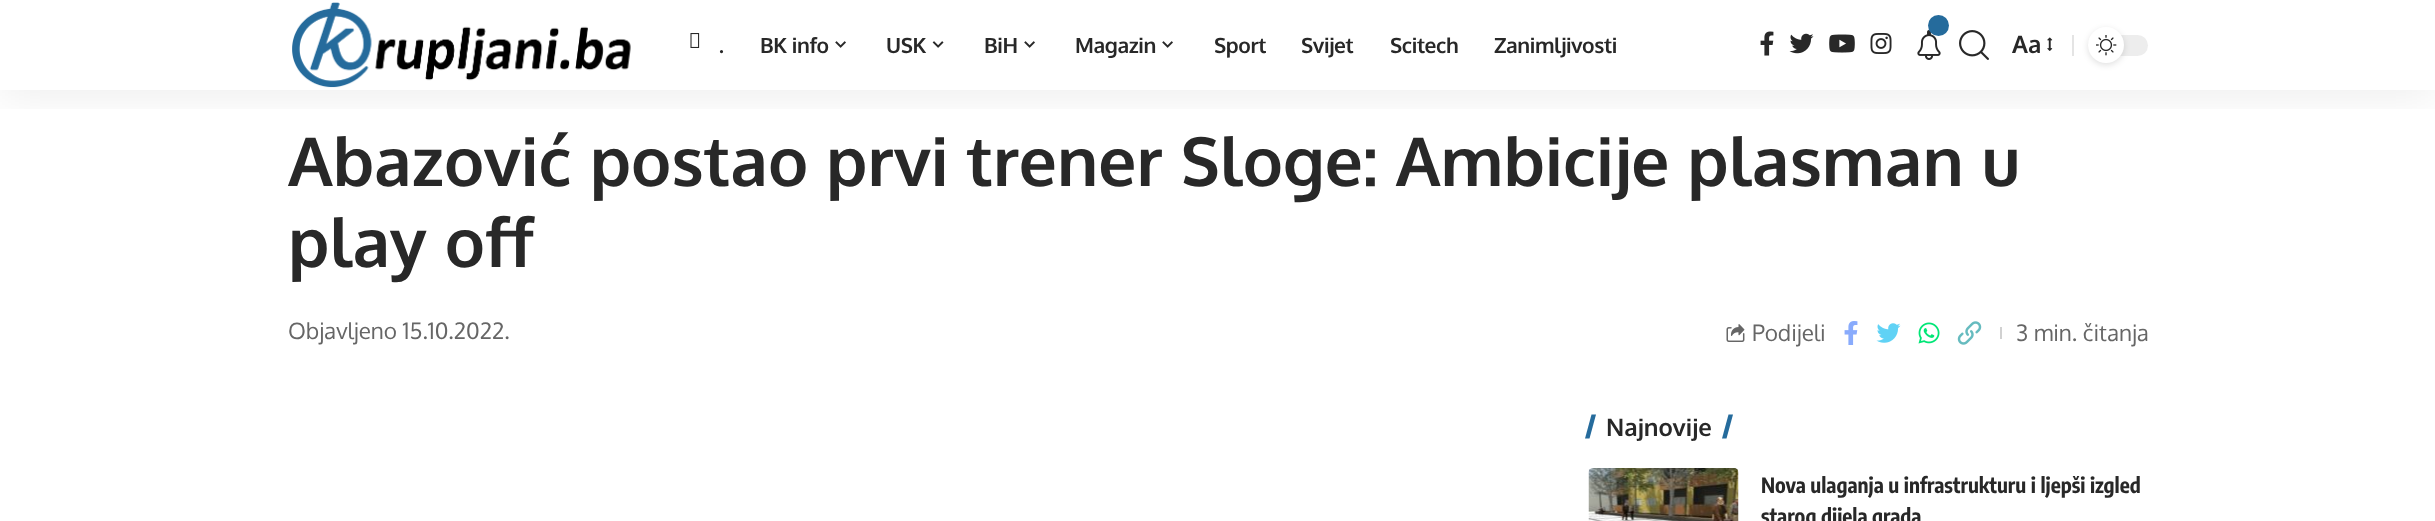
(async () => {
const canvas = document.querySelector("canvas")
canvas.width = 2435
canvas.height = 521
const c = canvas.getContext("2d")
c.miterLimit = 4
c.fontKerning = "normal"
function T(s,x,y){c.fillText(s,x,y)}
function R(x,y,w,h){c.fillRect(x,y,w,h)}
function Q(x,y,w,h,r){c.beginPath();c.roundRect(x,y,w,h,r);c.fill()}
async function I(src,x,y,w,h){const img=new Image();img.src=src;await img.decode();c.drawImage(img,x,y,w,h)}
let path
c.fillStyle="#fff"
R(0,0,2435,521)
c.save()
c.beginPath()
c.rect(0,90,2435,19)
c.clip()
c.fillStyle="#00000012"
c.filter="blur(22.5px)"
c.beginPath()
c.rect(0,6,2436,90)
c.fill()
c.filter="none"
c.restore()
await I("1.png",292,2,339,86)
await I("2.png",690,33,10,15)
c.letterSpacing="-0.4px"
c.font="bold 21px Oxygen"
c.fillStyle="#282828"
T(".",719,53)
T("BK info",760,53)
await I("3.png",835,41,11,7)
T("USK",886,53)
await I("4.png",932,41,12,7)
T("BiH",984,53)
await I("3.png",1024,41,11,7)
T("Magazin",1075,53)
await I("3.png",1162,41,11,7)
T("Sport",1214,53)
T("Svijet",1301,53)
T("Scitech",1390,53)
T("Zanimljivosti",1494,53)
await I("5.png",1760,31,14,25)
await I("6.png",1789,33,25,21)
await I("7.png",1829,34,26,19)
await I("8.png",1870,33,22,21)
await I("9.png",1917,30,24,30)
c.fillStyle="#256b9c"
c.beginPath()
c.arc(1938.5,25.5,10.5,0,7)
c.fill()
await I("10.png",1959,30,30,30)
c.letterSpacing="0px"
c.font="bold 24px Oxygen"
c.fillStyle="#282828"
T("Aa",2012,53)
await I("11.png",2047,37,6,14)
c.fillStyle="#e4e4e4"
R(2072,35,2,21)
c.fillStyle="#ededed"
Q(2088,35,60,21,10.5)
c.fillStyle="#0000001f"
c.filter="blur(3px)"
c.beginPath()
c.roundRect(2088,29,36,36,18)
c.fill()
c.filter="none"
c.fillStyle="#fff"
c.beginPath()
c.arc(2106,45,18,0,7)
c.fill()
await I("12.png",2096,35,21,21)
c.font="bold 67.5px Oxygen"
c.fillStyle="#282828"
T("Abazović postao prvi trener Sloge: Ambicije plasman u",288,186)
T("play off",288,267)
c.font="22.5px Oxygen"
c.fillStyle="#666"
T("Objavljeno 15.10.2022.",288,339)
await I("13.png",1726,324,19,18)
T("Podijeli",1752,341)
await I("14.png",1844,321,14,24)
await I("15.png",1876,323,25,20)
await I("16.png",1918,322,22,22)
await I("17.png",1957,321,25,24)
c.fillStyle="#d1d1d1"
R(2000,327,2,12)
c.fillStyle="#666"
T("3 min. čitanja",2016,341)
c.fillStyle="#256b9c"
path = new Path2D("M1728.5 414.5h4.5l-6.5 24h-4.5z")
c.fill(path)
path = new Path2D("M1591.5 414.5h4.5l-6.5 24h-4.5z")
c.fill(path)
c.font="bold 24px Oxygen"
c.fillStyle="#282828"
T("Najnovije",1606,436)
await I("18.png",1588,468,151,53)
c.font="bold 21px Encode Sans Condensed"
T("Nova ulaganja u infrastrukturu i ljepši izgled",1761,493)
T("starog dijela grada",1761,524)
})()
